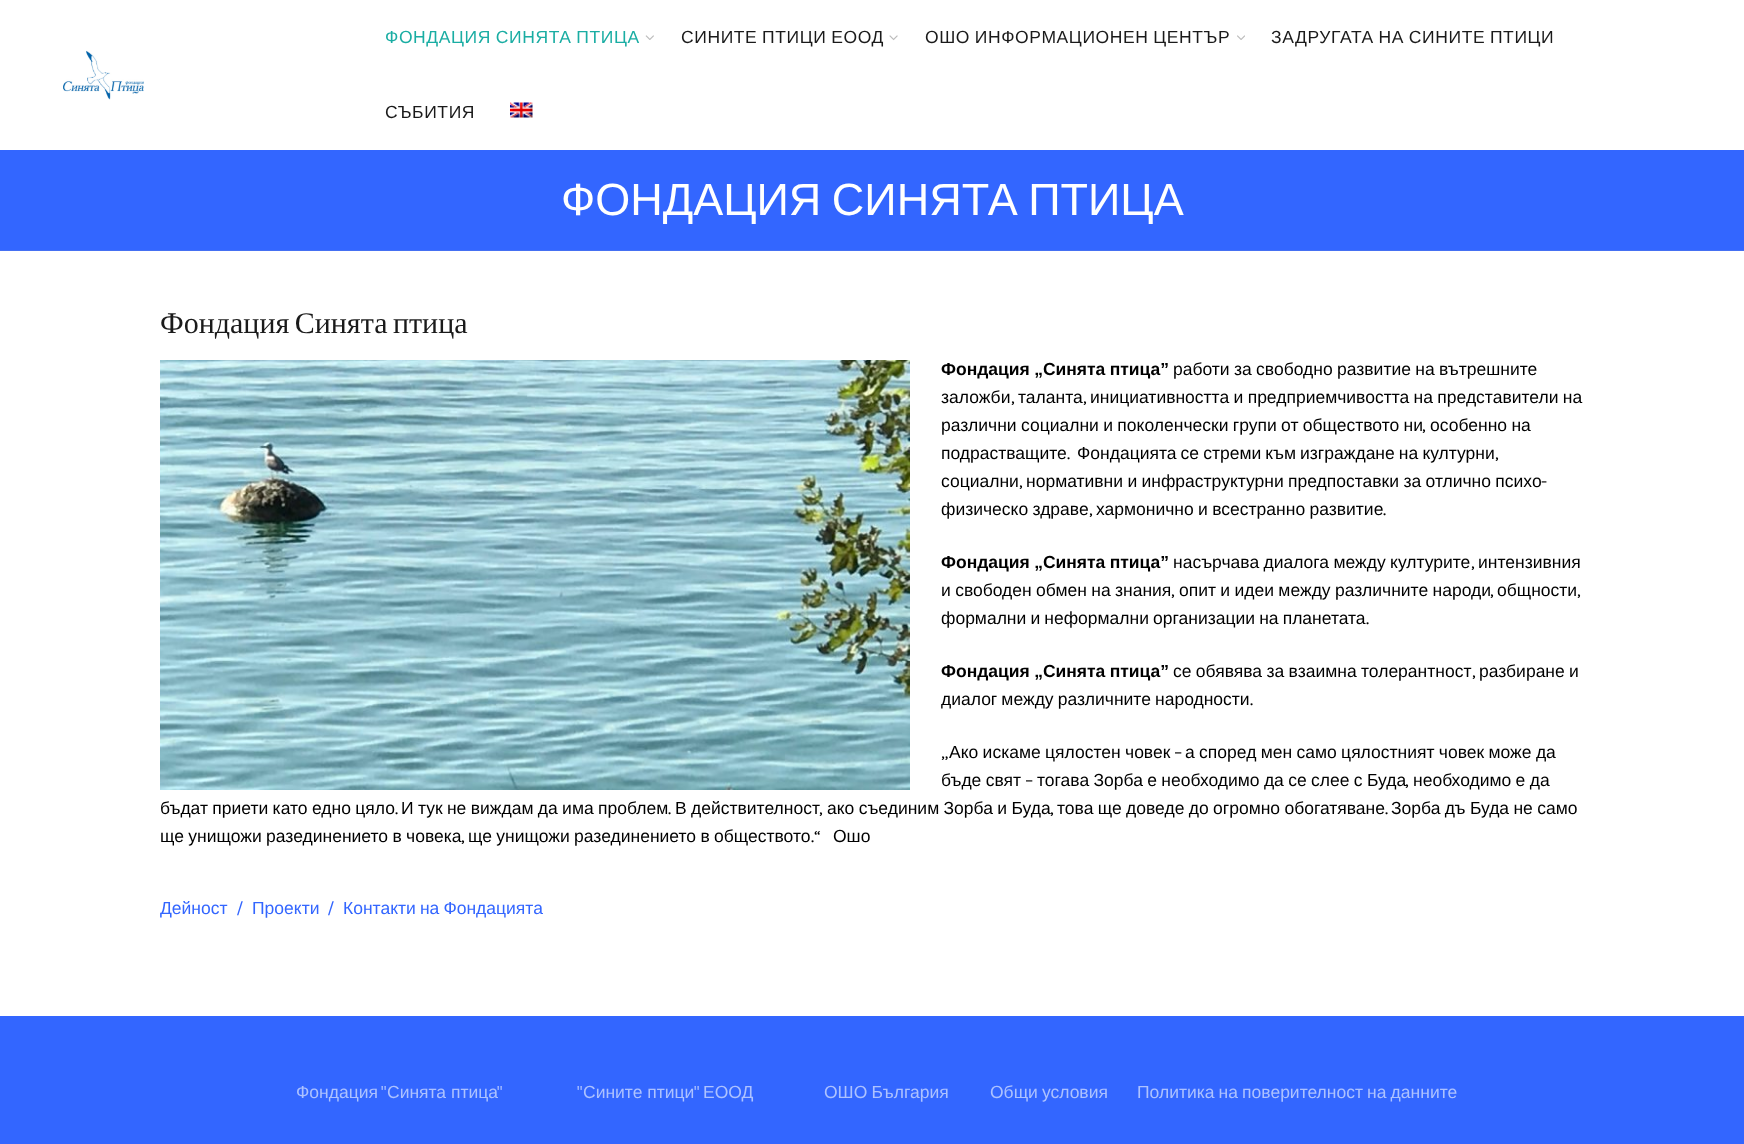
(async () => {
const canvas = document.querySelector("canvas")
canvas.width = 1744
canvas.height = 1144
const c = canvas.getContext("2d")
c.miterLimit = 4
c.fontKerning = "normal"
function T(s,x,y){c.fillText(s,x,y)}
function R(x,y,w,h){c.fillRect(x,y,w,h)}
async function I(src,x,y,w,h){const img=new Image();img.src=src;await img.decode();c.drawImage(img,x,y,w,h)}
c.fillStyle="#fff"
R(0,0,1744,1144)
await I("1.png",63,50,81,50)
c.letterSpacing="0.6px"
c.wordSpacing="-0.75px"
c.font="17.5px Liberation Sans"
c.fillStyle="#1aada3"
T("ФОНДАЦИЯ СИНЯТА ПТИЦА",385,43)
await I("2.png",645,35,9,5)
c.fillStyle="#1a1a1a"
T("СИНИТЕ ПТИЦИ ЕООД",681,43)
await I("3.png",889,35,9,6)
T("ОШО ИНФОРМАЦИОНЕН ЦЕНТЪР",925,43)
await I("4.png",1237,35,8,5)
T("ЗАДРУГАТА НА СИНИТЕ ПТИЦИ",1271,43)
c.wordSpacing="0px"
T("СЪБИТИЯ",385,118)
await I("5.png",510,102,23,16)
c.fillStyle="#36f"
R(0,150,1744,100)
c.fillStyle="#4570f2"
R(0,250,1744,1)
c.letterSpacing="0px"
c.wordSpacing="-2px"
c.font="45px Liberation Sans"
c.fillStyle="#fff"
T("ФОНДАЦИЯ СИНЯТА ПТИЦА",561,215)
c.font="30px Liberation Serif"
c.fillStyle="#1a1a1a"
T("Фондация Синята птица",160,333)
await I("6.png",160,360,750,430)
c.wordSpacing="-0.5px"
c.font="bold 17.5px Liberation Sans"
c.fillStyle="#000"
T("Фондация „Синята птица”",941,375)
c.font="17.5px Liberation Sans"
T("работи за свободно развитие на вътрешните",1173,375)
c.wordSpacing="0px"
T("заложби",941,403)
c.font="17.5px Karla"
T(",",1011,403)
c.font="17.5px Liberation Sans"
T("таланта",1018,403)
c.font="17.5px Karla"
T(",",1083,403)
c.wordSpacing="-0.5px"
c.font="17.5px Liberation Sans"
T("инициативността и предприемчивостта на представители на",1090,403)
T("различни социални и поколенчески групи от обществото ни",941,431)
c.wordSpacing="0px"
c.font="17.5px Karla"
T(",",1422,431)
c.wordSpacing="-0.5px"
c.font="17.5px Liberation Sans"
T("особенно на",1430,431)
c.wordSpacing="0px"
T("подрастващите",941,459)
c.font="17.5px Karla"
T(".",1067,459)
c.wordSpacing="-0.75px"
c.font="17.5px Liberation Sans"
T("Фондацията се стреми към изграждане на културни",1077,459)
c.wordSpacing="0px"
c.font="17.5px Karla"
T(",",1495,459)
c.font="17.5px Liberation Sans"
T("социални",941,487)
c.wordSpacing="-0.5px"
T("нормативни и инфраструктурни предпоставки за отлично психо",1026,487)
c.wordSpacing="0px"
c.font="17.5px Karla"
T("-",1541,487)
T(",",1019,487)
c.wordSpacing="-0.5px"
c.font="17.5px Liberation Sans"
T("физическо здраве",941,515)
c.wordSpacing="0px"
c.font="17.5px Karla"
T(",",1089,515)
c.wordSpacing="-0.5px"
c.font="17.5px Liberation Sans"
T("хармонично и всестранно развитие",1096,515)
c.wordSpacing="0px"
c.font="17.5px Karla"
T(".",1383,515)
c.wordSpacing="-0.5px"
c.font="bold 17.5px Liberation Sans"
T("Фондация „Синята птица”",941,568)
c.font="17.5px Liberation Sans"
T("насърчава диалога между културите",1173,568)
c.wordSpacing="0px"
c.font="17.5px Karla"
T(",",1471,568)
c.font="17.5px Liberation Sans"
T("интензивния",1478,568)
c.wordSpacing="-0.5px"
T("и свободен обмен на знания",941,596)
c.wordSpacing="0px"
c.font="17.5px Karla"
T(",",1171,596)
c.wordSpacing="-0.5px"
c.font="17.5px Liberation Sans"
T("опит и идеи между различните народи",1179,596)
c.wordSpacing="0px"
c.font="17.5px Karla"
T(",",1490,596)
c.font="17.5px Liberation Sans"
T("общности",1497,596)
c.font="17.5px Karla"
T(",",1577,596)
c.wordSpacing="-0.75px"
c.font="17.5px Liberation Sans"
T("формални и неформални организации на планетата",941,624)
c.wordSpacing="0px"
c.font="17.5px Karla"
T(".",1366,624)
c.wordSpacing="-0.5px"
c.font="bold 17.5px Liberation Sans"
T("Фондация „Синята птица”",941,677)
c.font="17.5px Liberation Sans"
T("се обявява за взаимна толерантност",1173,677)
c.wordSpacing="0px"
c.font="17.5px Karla"
T(",",1472,677)
c.wordSpacing="-0.5px"
c.font="17.5px Liberation Sans"
T("разбиране и",1479,677)
c.wordSpacing="-0.75px"
T("диалог между различните народности",941,705)
c.wordSpacing="0px"
c.font="17.5px Karla"
T(".",1250,705)
c.wordSpacing="-0.5px"
c.font="17.5px Liberation Sans"
T("Ако искаме цялостен човек",949,758)
c.wordSpacing="0px"
c.font="17.5px Karla"
T("–",1174,758)
c.wordSpacing="-0.5px"
c.font="17.5px Liberation Sans"
T("а според мен само цялостният човек може да",1185,758)
c.wordSpacing="0px"
c.font="17.5px Karla"
T("„",941,758)
c.wordSpacing="-0.5px"
c.font="17.5px Liberation Sans"
T("бъде свят",941,786)
c.wordSpacing="0px"
c.font="17.5px Karla"
T("–",1025,786)
c.wordSpacing="-0.5px"
c.font="17.5px Liberation Sans"
T("тогава Зорба е необходимо да се слее с Буда",1037,786)
T("необходимо е да",1413,786)
c.wordSpacing="0px"
c.font="17.5px Karla"
T(",",1405,786)
c.wordSpacing="-0.5px"
c.font="17.5px Liberation Sans"
T("бъдат приети като едно цяло",160,814)
c.wordSpacing="0px"
c.font="17.5px Karla"
T(".",395,814)
c.wordSpacing="-0.5px"
c.font="17.5px Liberation Sans"
T("И тук не виждам да има проблем",401,814)
c.wordSpacing="0px"
c.font="17.5px Karla"
T(".",668,814)
c.wordSpacing="-0.5px"
c.font="17.5px Liberation Sans"
T("В действителност",675,814)
c.wordSpacing="0px"
c.font="17.5px Karla"
T(",",819,814)
c.wordSpacing="-0.5px"
c.font="17.5px Liberation Sans"
T("ако съединим Зорба и Буда",827,814)
c.wordSpacing="0px"
c.font="17.5px Karla"
T(",",1050,814)
c.wordSpacing="-0.5px"
c.font="17.5px Liberation Sans"
T("това ще доведе до огромно обогатяване",1057,814)
c.wordSpacing="0px"
c.font="17.5px Karla"
T(".",1385,814)
c.wordSpacing="-0.5px"
c.font="17.5px Liberation Sans"
T("Зорба дъ Буда не само",1391,814)
T("ще унищожи разединението в човека",160,842)
c.wordSpacing="0px"
c.font="17.5px Karla"
T(",",461,842)
c.wordSpacing="-0.5px"
c.font="17.5px Liberation Sans"
T("ще унищожи разединението в обществото",468,842)
c.wordSpacing="0px"
c.font="17.5px Karla"
T(".“",811,842)
c.font="17.5px Liberation Sans"
T("Ошо",833,842)
c.fillStyle="#36f"
T("Дейност",160,914)
c.font="17.5px Karla"
T("/",236,914)
c.font="17.5px Liberation Sans"
T("Проекти",252,914)
c.font="17.5px Karla"
T("/",327,914)
c.wordSpacing="-0.75px"
c.font="17.5px Liberation Sans"
T("Контакти на Фондацията",343,914)
R(0,1016,1744,128)
c.wordSpacing="0px"
c.fillStyle="#adc2ff"
T("Фондация",296,1098)
c.font="17.5px Karla"
T("\"",381,1098)
c.font="17.5px Liberation Sans"
T("Синята птица",387,1098)
c.font="17.5px Karla"
T("\"",497,1098)
T("\"",577,1098)
c.font="17.5px Liberation Sans"
T("Сините птици",583,1098)
c.font="17.5px Karla"
T("\"",694,1098)
c.font="17.5px Liberation Sans"
T("ЕООД",703,1098)
c.wordSpacing="-0.75px"
T("ОШО България",824,1098)
T("Общи условия",990,1098)
T("Политика на поверителност на данните",1137,1098)
})()
